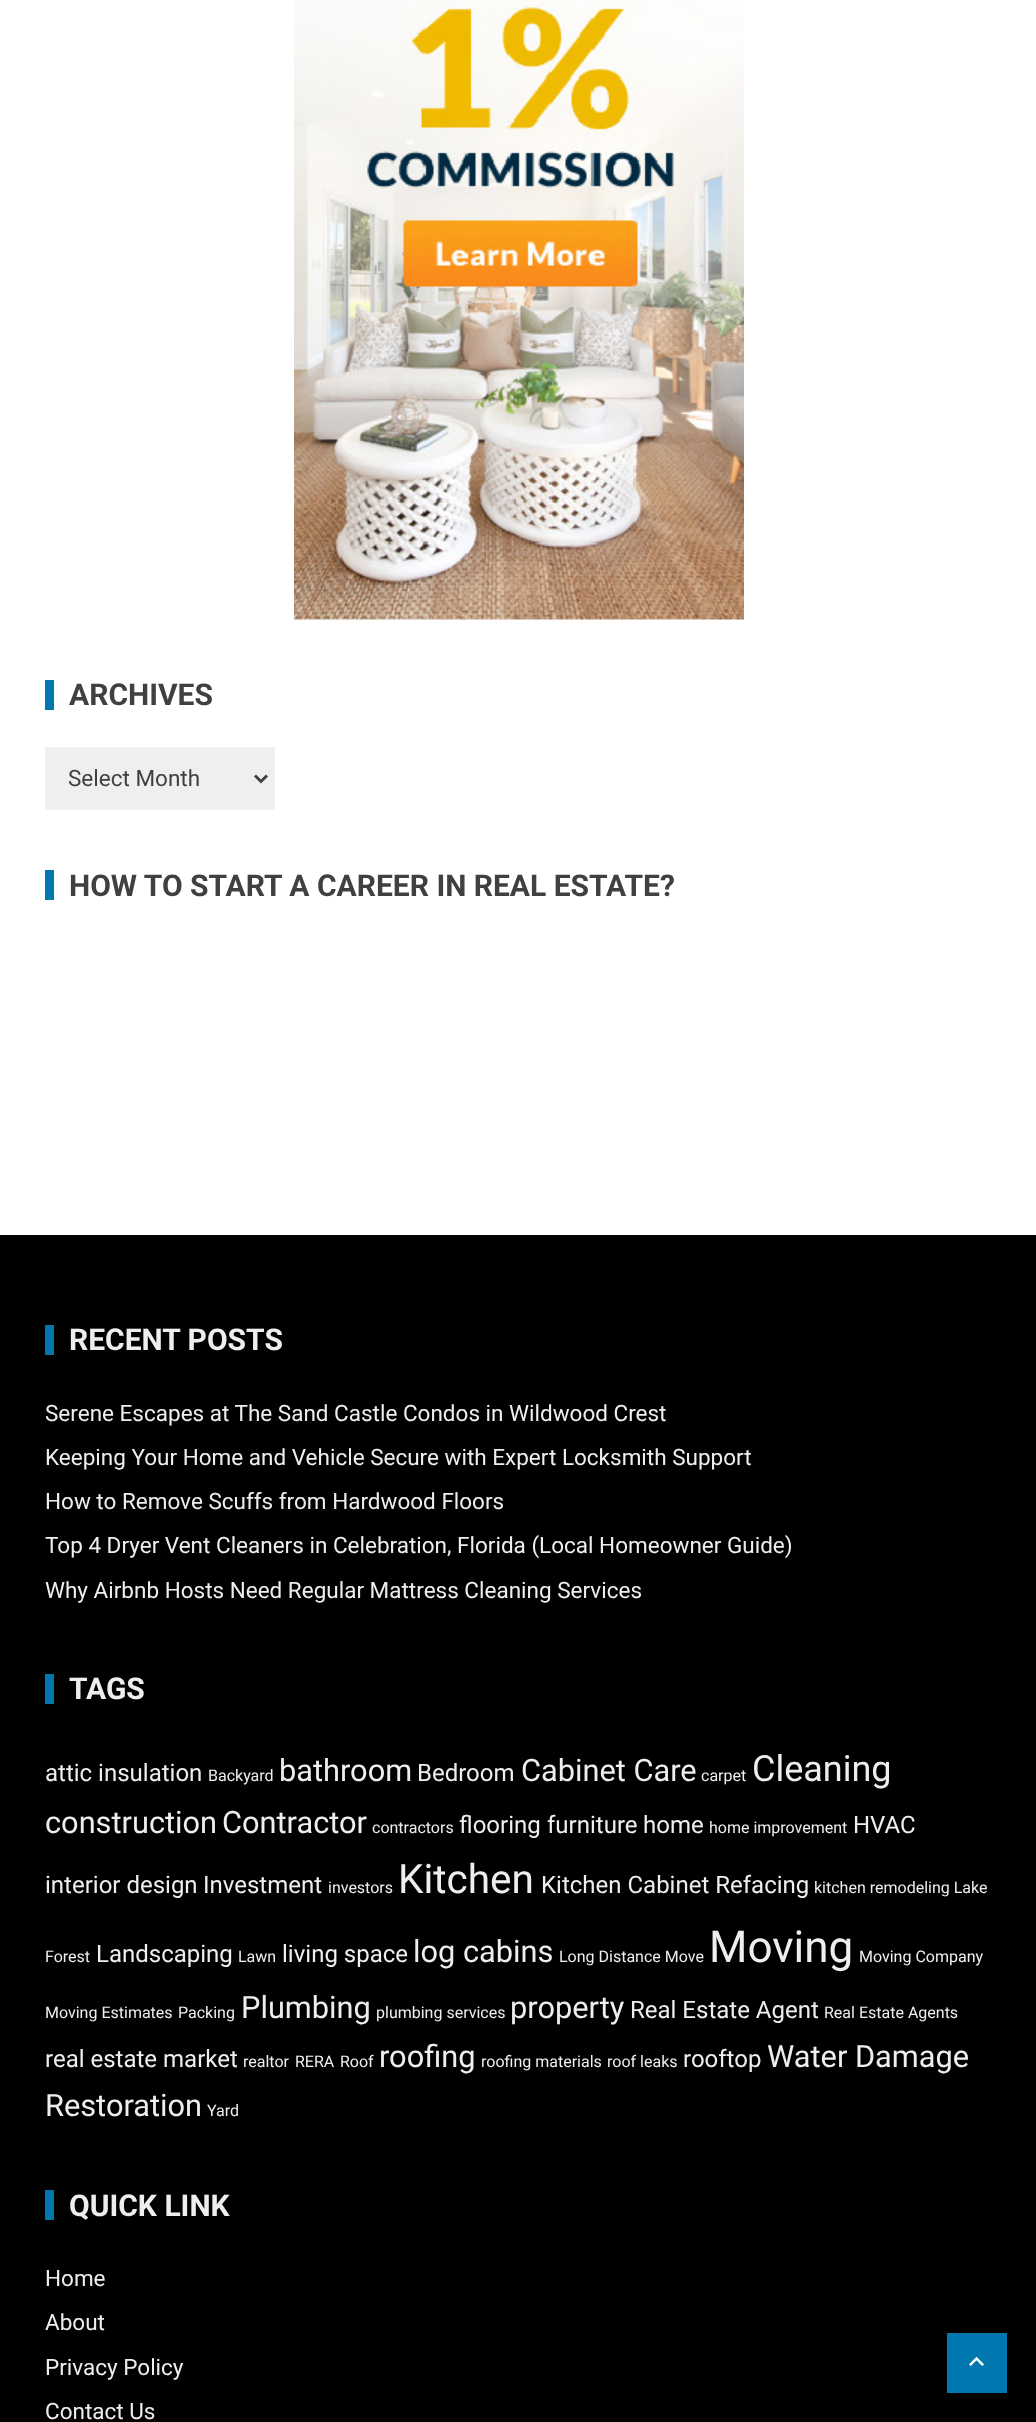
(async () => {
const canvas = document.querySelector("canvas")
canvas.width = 1036
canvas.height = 2422
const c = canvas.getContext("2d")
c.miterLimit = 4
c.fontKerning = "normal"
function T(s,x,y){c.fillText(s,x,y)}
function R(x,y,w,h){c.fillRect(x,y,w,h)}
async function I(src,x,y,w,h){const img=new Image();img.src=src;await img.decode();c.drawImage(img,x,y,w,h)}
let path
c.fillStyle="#fff"
R(0,0,1036,2422)
await I("1.png",294,0,450,620)
c.fillStyle="#0078af"
R(45,680,9,30)
c.font="bold 30px Roboto"
c.fillStyle="#404040"
T("ARCHIVES",69,705)
c.fillStyle="#efefef"
R(45,747,230,63)
path = new Path2D("M255 775.5l6 6l6-6")
c.strokeStyle="#404040"
c.lineWidth=3
c.stroke(path)
c.font="22.5px Roboto"
c.fillStyle="#404040"
T("Select Month",68,786)
c.fillStyle="#0078af"
R(45,870,9,30)
c.font="bold 30px Roboto"
c.fillStyle="#404040"
T("HOW TO START A CAREER IN REAL ESTATE?",69,896)
c.fillStyle="#000"
R(0,1235,1036,1187)
c.fillStyle="#0078af"
R(45,1325,9,30)
c.fillStyle="#eee"
T("RECENT POSTS",69,1350)
c.font="22.5px Roboto"
T("Serene Escapes at The Sand Castle Condos in Wildwood Crest",45,1421)
T("Keeping Your Home and Vehicle Secure with Expert Locksmith Support",45,1465)
T("How to Remove Scuffs from Hardwood Floors",45,1509)
T("Top 4 Dryer Vent Cleaners in Celebration, Florida (Local Homeowner Guide)",45,1553)
T("Why Airbnb Hosts Need Regular Mattress Cleaning Services",45,1598)
c.fillStyle="#0078af"
R(45,1674,9,30)
c.font="bold 30px Roboto"
c.fillStyle="#eee"
T("TAGS",69,1699)
c.font="24px Roboto"
T("attic insulation",45,1781)
c.font="16px Roboto"
T("Backyard",208,1781)
c.font="30.75px Roboto"
T("bathroom",279,1781)
c.font="24px Roboto"
T("Bedroom",417,1781)
c.font="30.75px Roboto"
T("Cabinet Care",521,1781)
c.font="16px Roboto"
T("carpet",701,1781)
c.font="36px Roboto"
T("Cleaning",752,1781)
c.font="30.75px Roboto"
T("construction",45,1833)
T("Contractor",222,1833)
c.font="16px Roboto"
T("contractors",372,1833)
c.font="24px Roboto"
T("flooring",459,1833)
T("furniture",547,1833)
T("home",643,1833)
c.font="16px Roboto"
T("home improvement",709,1833)
c.font="24px Roboto"
T("HVAC",853,1833)
T("interior design",45,1893)
T("Investment",203,1893)
c.font="16px Roboto"
T("investors",328,1893)
c.font="40.5px Roboto"
T("Kitchen",398,1893)
c.font="24px Roboto"
T("Kitchen Cabinet Refacing",541,1893)
c.font="16px Roboto"
T("kitchen remodeling Lake",814,1893)
T("Forest",45,1962)
c.font="24px Roboto"
T("Landscaping",96,1962)
c.font="16px Roboto"
T("Lawn",238,1962)
c.font="24px Roboto"
T("living space",282,1962)
c.font="30.75px Roboto"
T("log cabins",413,1962)
c.font="16px Roboto"
T("Long Distance Move",559,1962)
c.font="44px Roboto"
T("Moving",709,1962)
c.font="16px Roboto"
T("Moving Company",859,1962)
T("Moving Estimates",45,2018)
T("Packing",178,2018)
c.font="30.75px Roboto"
T("Plumbing",241,2018)
c.font="16px Roboto"
T("plumbing services",376,2018)
c.font="30.75px Roboto"
T("property",510,2018)
c.font="24px Roboto"
T("Real Estate Agent",630,2018)
c.font="16px Roboto"
T("Real Estate Agents",824,2018)
c.font="24px Roboto"
T("real estate market",45,2067)
c.font="16px Roboto"
T("realtor",243,2067)
T("RERA",295,2067)
T("Roof",340,2067)
c.font="30.75px Roboto"
T("roofing",379,2067)
c.font="16px Roboto"
T("roofing materials",481,2067)
T("roof leaks",607,2067)
c.font="24px Roboto"
T("rooftop",683,2067)
c.font="30.75px Roboto"
T("Water Damage",767,2067)
T("Restoration",45,2116)
c.font="16px Roboto"
T("Yard",207,2116)
c.fillStyle="#0078af"
R(45,2190,9,30)
c.font="bold 30px Roboto"
c.fillStyle="#eee"
T("QUICK LINK",69,2216)
c.font="22.5px Roboto"
T("Home",45,2286)
T("About",45,2330)
T("Privacy Policy",45,2375)
T("Contact Us",45,2419)
c.fillStyle="#0078af"
R(947,2333,60,60)
await I("2.png",969,2356,15,10)
})()
